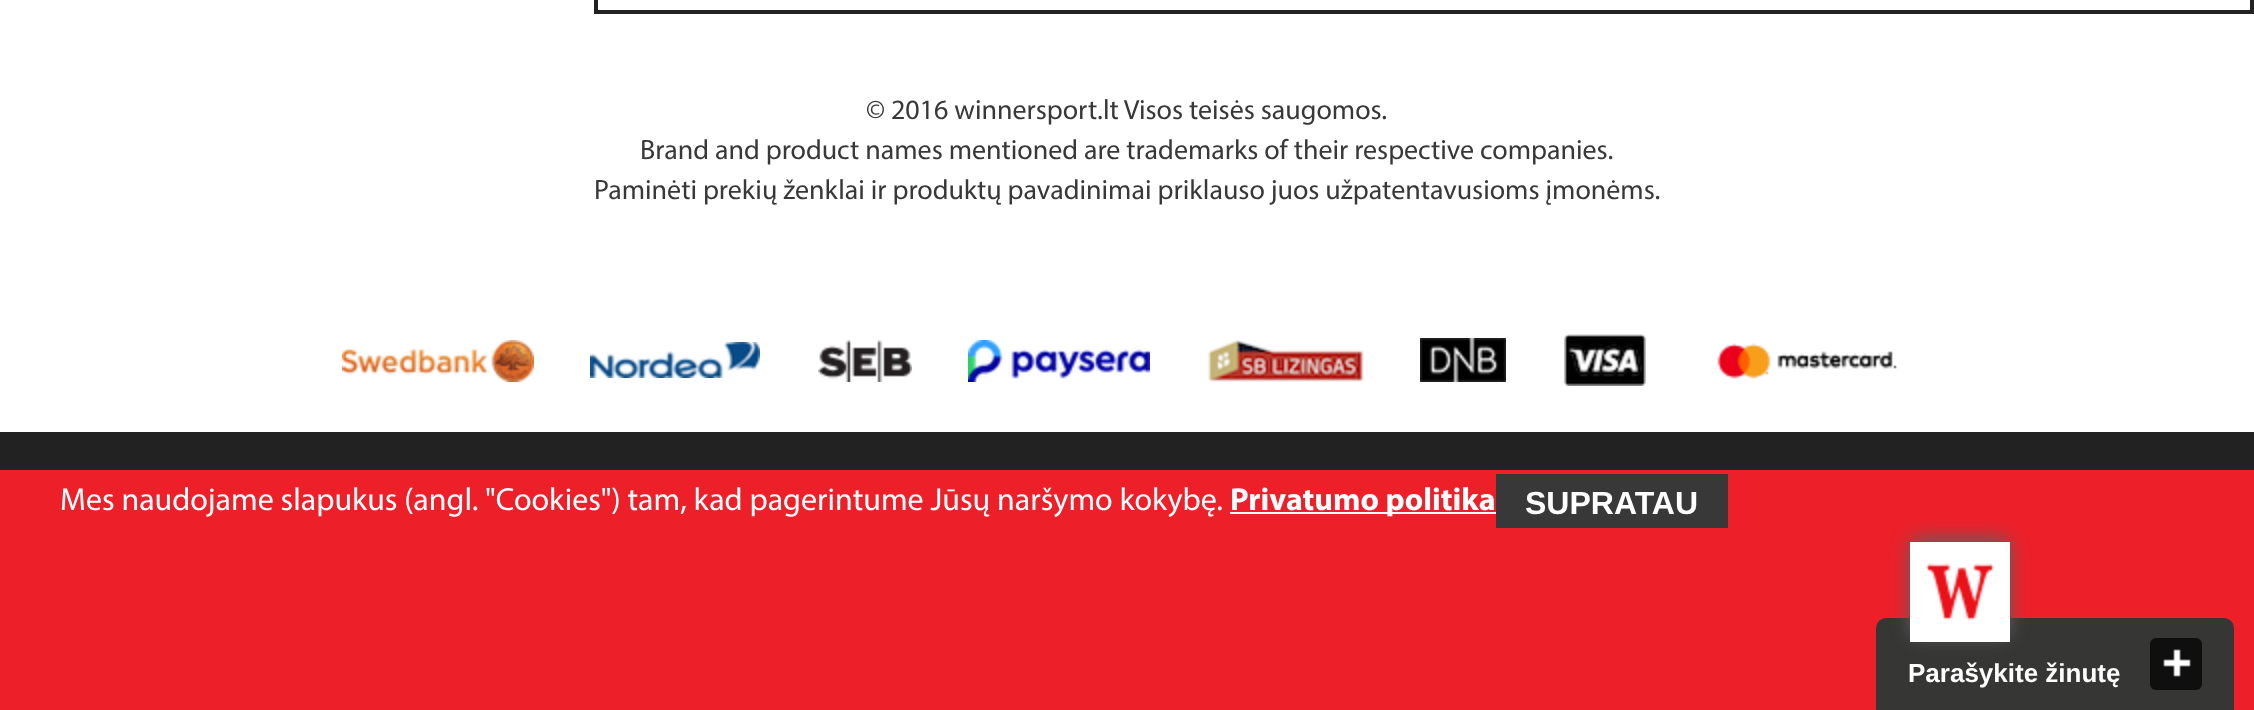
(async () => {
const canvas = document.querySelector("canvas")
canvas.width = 2254
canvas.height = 710
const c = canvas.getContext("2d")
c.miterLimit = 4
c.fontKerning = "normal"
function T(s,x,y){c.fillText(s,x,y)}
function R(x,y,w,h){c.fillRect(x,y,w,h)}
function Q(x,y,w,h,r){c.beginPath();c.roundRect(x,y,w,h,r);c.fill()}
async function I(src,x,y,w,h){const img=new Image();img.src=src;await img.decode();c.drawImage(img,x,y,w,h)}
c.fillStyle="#fff"
R(0,0,2254,710)
c.strokeStyle="#222"
c.lineWidth=4
c.strokeRect(596,-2,1656,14)
c.font="28px Myriad"
c.fillStyle="#373837"
T("© 2016 winnersport.lt Visos teisės saugomos.",866,119)
T("Brand and product names mentioned are trademarks of their respective companies.",640,159)
T("Paminėti prekių ženklai ir produktų pavadinimai priklauso juos užpatentavusioms įmonėms.",594,199)
await I("1.png",342,340,192,42)
await I("2.png",590,342,170,36)
await I("3.png",818,340,94,42)
await I("4.png",968,340,182,42)
await I("5.png",1208,339,156,43)
await I("6.png",1420,338,86,44)
await I("7.png",1564,334,82,52)
await I("8.png",1717,343,180,36)
c.fillStyle="#222"
R(0,432,2254,38)
c.fillStyle="#ed202a"
R(0,470,2254,240)
c.font="32px Myriad"
c.fillStyle="#fff"
T("Mes naudojame slapukus (angl. \"Cookies\") tam, kad pagerintume Jūsų naršymo kokybę.",60,510)
R(1230,512,266,2)
c.font="bold 32px Myriad"
T("Privatumo politika",1230,510)
c.fillStyle="#373837"
R(1496,474,232,54)
c.font="bold 32px Liberation Sans"
c.fillStyle="#fff"
T("SUPRATAU",1525,514)
c.fillStyle="#363635"
c.beginPath()
c.roundRect(1876,618,358,92,[10,10,0,0])
c.fill()
c.fillStyle="#5f5f5e"
c.filter="blur(9px)"
c.beginPath()
c.roundRect(1910,538,100,100,10)
c.fill()
c.filter="none"
await I("9.png",1910,542,100,100)
c.fillStyle="#0f0f0f"
Q(2150,638,52,52,6)
await I("10.png",2163,649,28,28)
c.font="bold 26px Liberation Sans"
c.fillStyle="#fff"
T("Parašykite žinutę",1908,682)
})()
